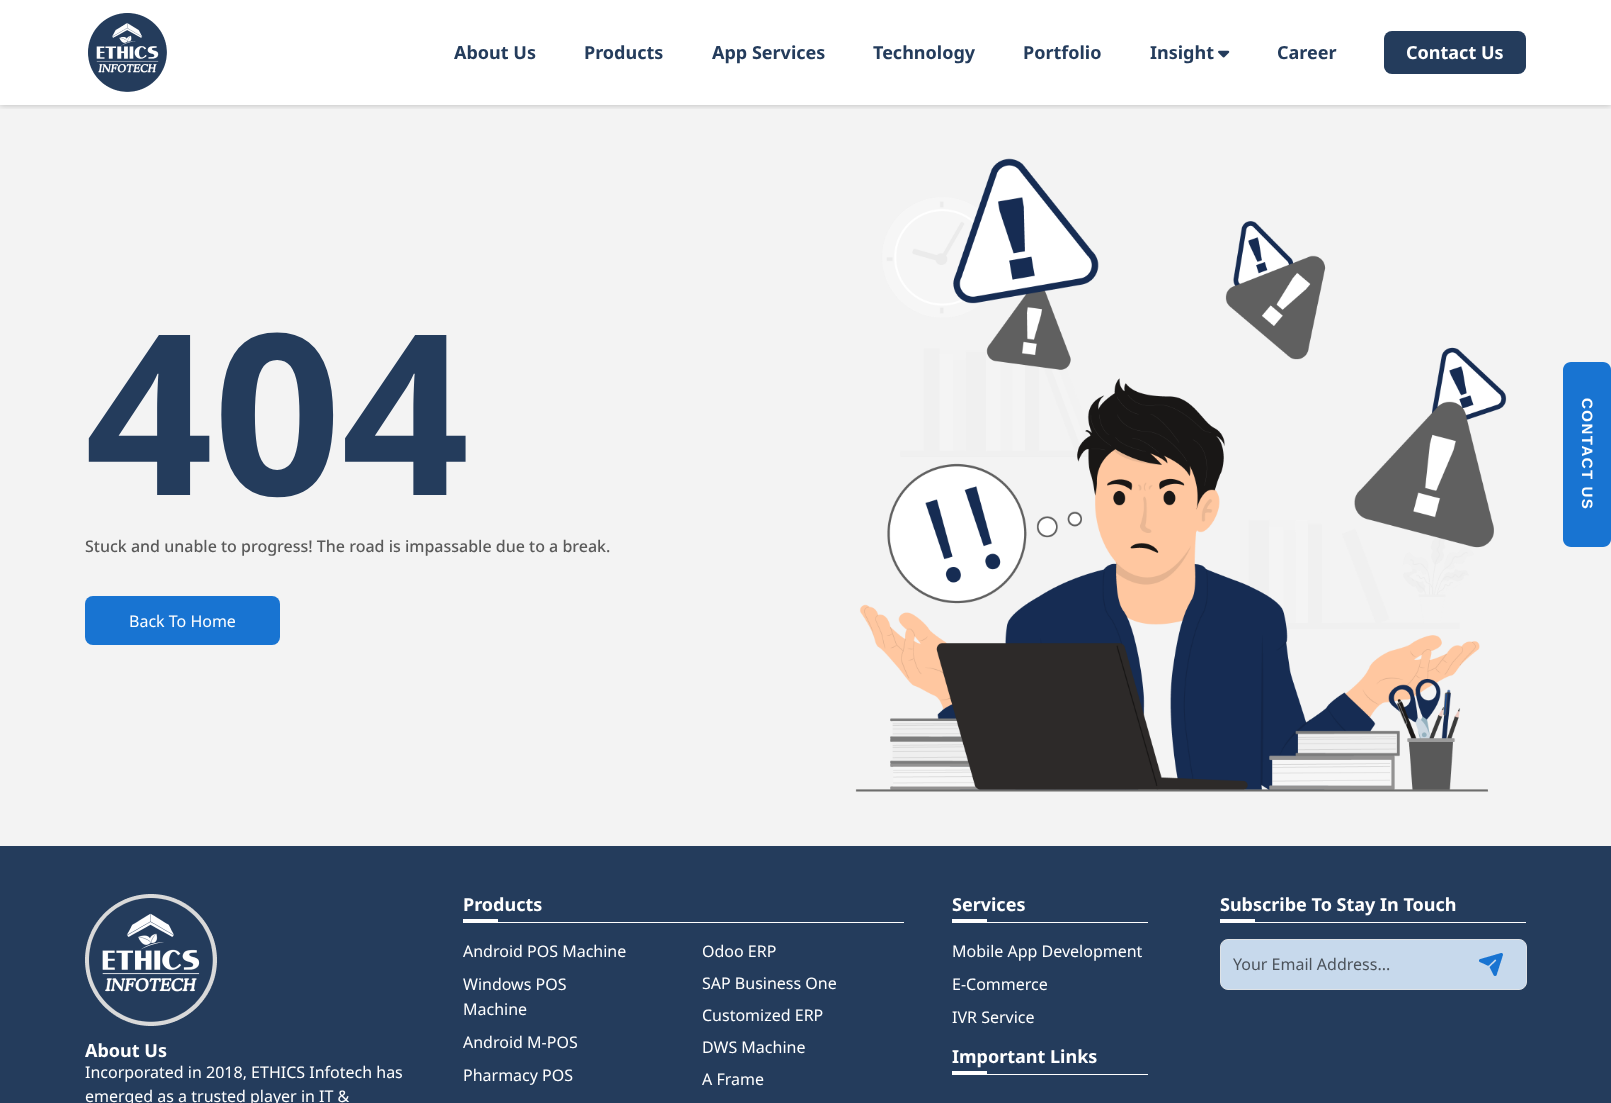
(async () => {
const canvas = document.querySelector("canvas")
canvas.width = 1611
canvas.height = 1103
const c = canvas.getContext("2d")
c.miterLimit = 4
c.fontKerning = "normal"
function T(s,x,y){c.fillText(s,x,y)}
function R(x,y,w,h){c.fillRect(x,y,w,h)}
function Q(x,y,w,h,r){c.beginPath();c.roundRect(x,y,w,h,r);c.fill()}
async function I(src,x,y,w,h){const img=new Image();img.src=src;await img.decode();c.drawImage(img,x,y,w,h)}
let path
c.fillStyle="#fff"
R(0,0,1611,1103)
c.fillStyle="#f3f3f3"
R(0,105,1611,741)
c.save()
c.beginPath()
c.rect(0,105,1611,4)
c.clip()
c.fillStyle="#00000040"
c.filter="blur(3px)"
c.beginPath()
c.rect(0,0,1611,105)
c.fill()
c.filter="none"
c.restore()
await I("1.png",88,13,79,79)
c.font="bold 18px Noto Sans"
c.fillStyle="#243c5c"
T("About Us",454,59)
T("Products",584,59)
T("App Services",712,59)
T("Technology",873,59)
T("Portfolio",1023,59)
T("Insight",1150,59)
await I("2.png",1218,50,12,8)
T("Career",1277,59)
Q(1384,31,142,43,8)
c.beginPath()
c.roundRect(1385,34,140,38,7)
c.strokeStyle="#243c5c"
c.lineWidth=2
c.stroke()
c.fillStyle="#fff"
T("Contact Us",1406,59)
c.font="bold 224px Noto Sans"
c.fillStyle="#243c5c"
T("404",85,495)
c.font="500 16px Noto Sans"
c.fillStyle="#5a5a5a"
T("Stuck and unable to progress! The road is impassable due to a break.",85,552)
c.fillStyle="#1874d2"
Q(85,596,195,49,8)
c.font="16px Noto Sans"
c.fillStyle="#fff"
T("Back To Home",129,627)
await I("3.png",855,158,652,634)
c.fillStyle="#1874d2"
path = new Path2D("M1611 370v169c0 4-3 8-8 8h-32c-5 0-8-4-8-8v-169c0-4 3-8 8-8h32c5 0 8 4 8 8z")
c.fill(path)
c.letterSpacing="1.5px"
c.font="bold 15px Liberation Sans"
c.fillStyle="#fff"
c.save()
c.translate(1582,398)
c.rotate(90 * Math.PI / 180)
c.fillText("CONTACT US",0,0)
c.restore()
c.fillStyle="#243c5c"
R(0,846,1611,257)
c.fillStyle="#fff"
R(463,922,441,1)
c.letterSpacing="0px"
c.font="bold 18px Noto Sans"
T("Products",463,911)
R(463,919,35,3)
c.font="16px Noto Sans"
T("Android POS Machine",463,957)
T("Windows POS",463,990)
T("Machine",463,1015)
T("Android M-POS",463,1048)
T("Pharmacy POS",463,1081)
T("Odoo ERP",702,957)
T("SAP Business One",702,989)
T("Customized ERP",702,1021)
T("DWS Machine",702,1053)
T("A Frame",702,1085)
R(952,922,196,1)
c.font="bold 18px Noto Sans"
T("Services",952,911)
R(952,919,35,3)
c.font="16px Noto Sans"
T("Mobile App Development",952,957)
T("E-Commerce",952,990)
T("IVR Service",952,1023)
R(952,1074,196,1)
c.font="bold 18px Noto Sans"
T("Important Links",952,1063)
R(952,1071,35,3)
R(1220,922,306,1)
T("Subscribe To Stay In Touch",1220,911)
R(1220,919,35,3)
c.fillStyle="#c7d9ec"
c.beginPath()
c.roundRect(1220.5,939.5,306,50,7.5)
c.fill()
c.strokeStyle="#dee2e6"
c.lineWidth=1
c.stroke()
c.font="16px Noto Sans"
c.fillStyle="#4b525a"
T("Your Email Address...",1233,970)
await I("4.png",1479,953,24,23)
await I("5.png",85,894,132,132)
c.font="bold 18px Noto Sans"
c.fillStyle="#fff"
T("About Us",85,1057)
c.font="16px Noto Sans"
T("Incorporated in 2018, ETHICS Infotech has",85,1078)
T("emerged as a trusted player in IT &",85,1102)
})()
